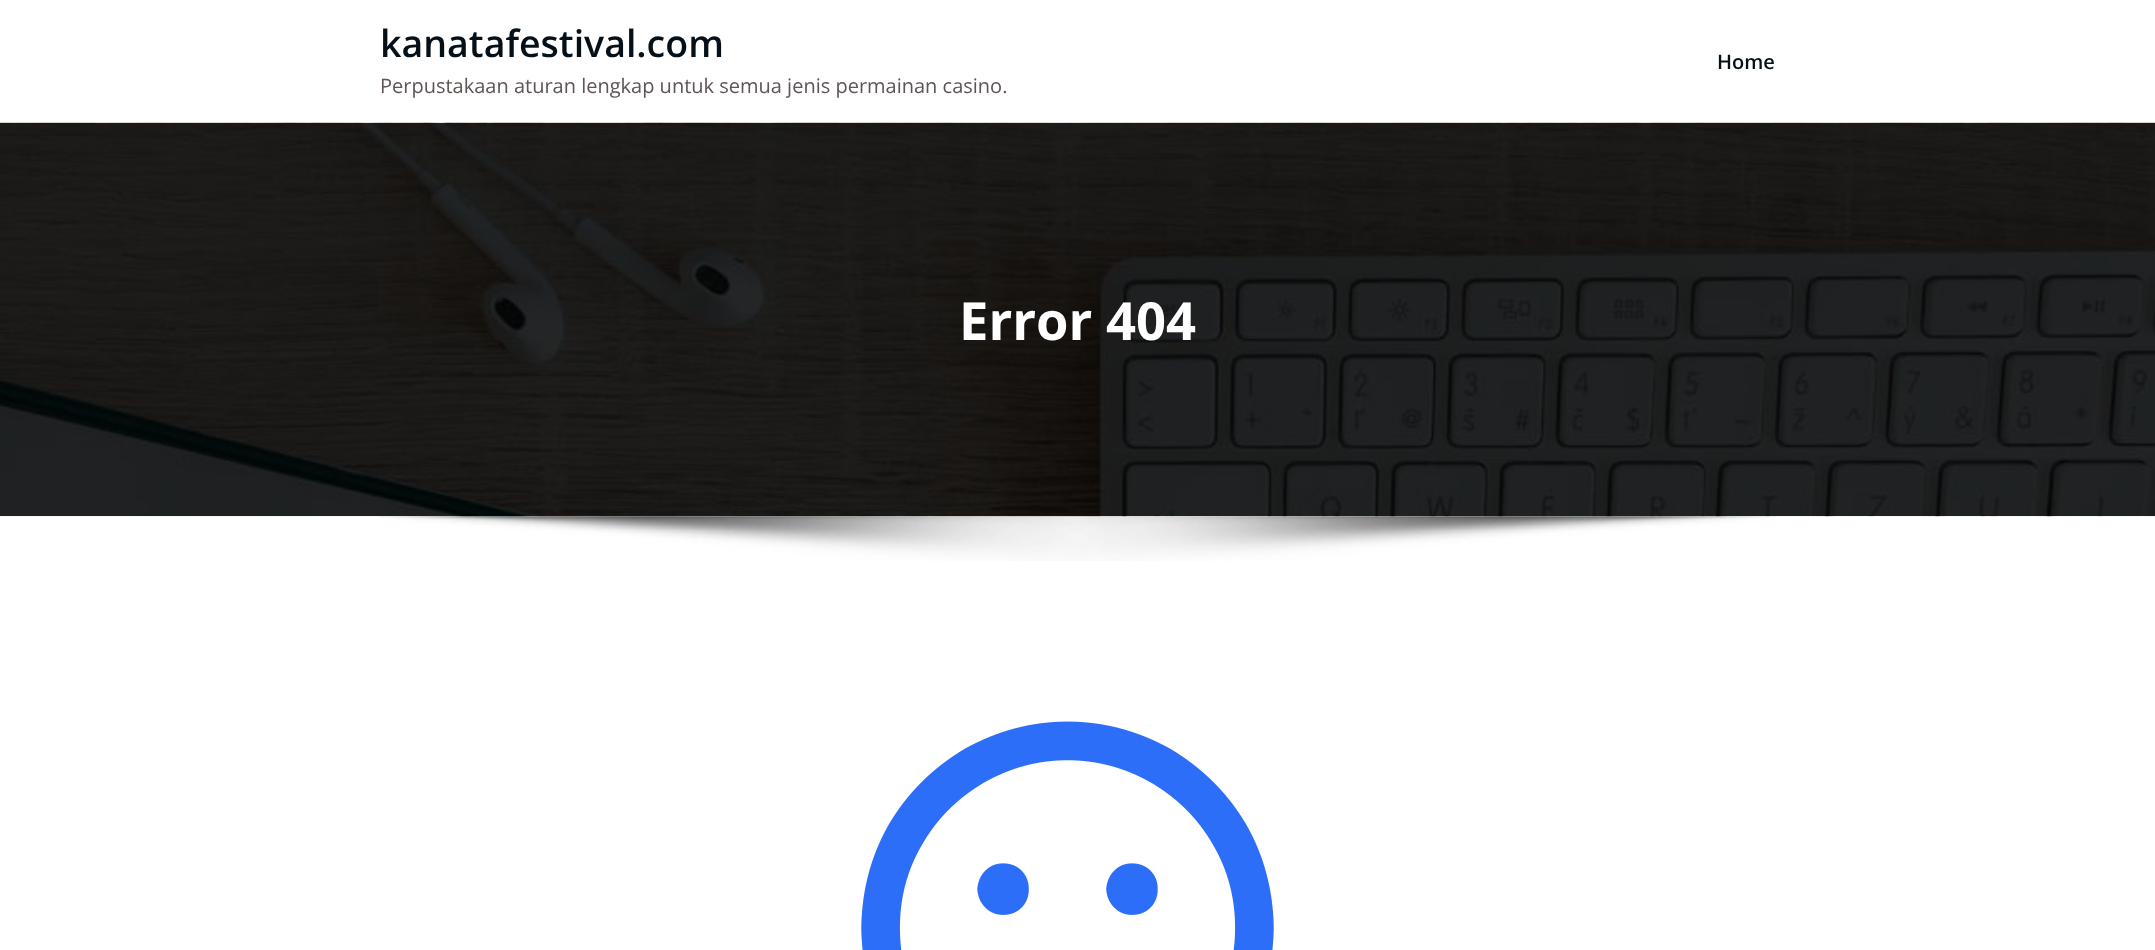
(async () => {
const canvas = document.querySelector("canvas")
canvas.width = 2155
canvas.height = 950
const c = canvas.getContext("2d")
c.miterLimit = 4
c.fontKerning = "normal"
function T(s,x,y){c.fillText(s,x,y)}
function R(x,y,w,h){c.fillRect(x,y,w,h)}
async function I(src,x,y,w,h){const img=new Image();img.src=src;await img.decode();c.drawImage(img,x,y,w,h)}
c.fillStyle="#fff"
R(0,0,2155,950)
c.font="600 37.5px Open Sans"
c.fillStyle="#061018"
T("kanatafestival.com",380,57)
c.font="20px Open Sans"
c.fillStyle="#5f5555"
T("Perpustakaan aturan lengkap untuk semua jenis permainan casino.",380,93)
c.font="600 20px Open Sans"
c.fillStyle="#061018"
T("Home",1717,69)
await I("1.png",0,122,2155,395)
c.font="bold 52.5px Open Sans"
c.fillStyle="#fff"
T("Error 404",959,340)
await I("2.png",378,516,1398,45)
await I("3.png",861,721,413,229)
})()
